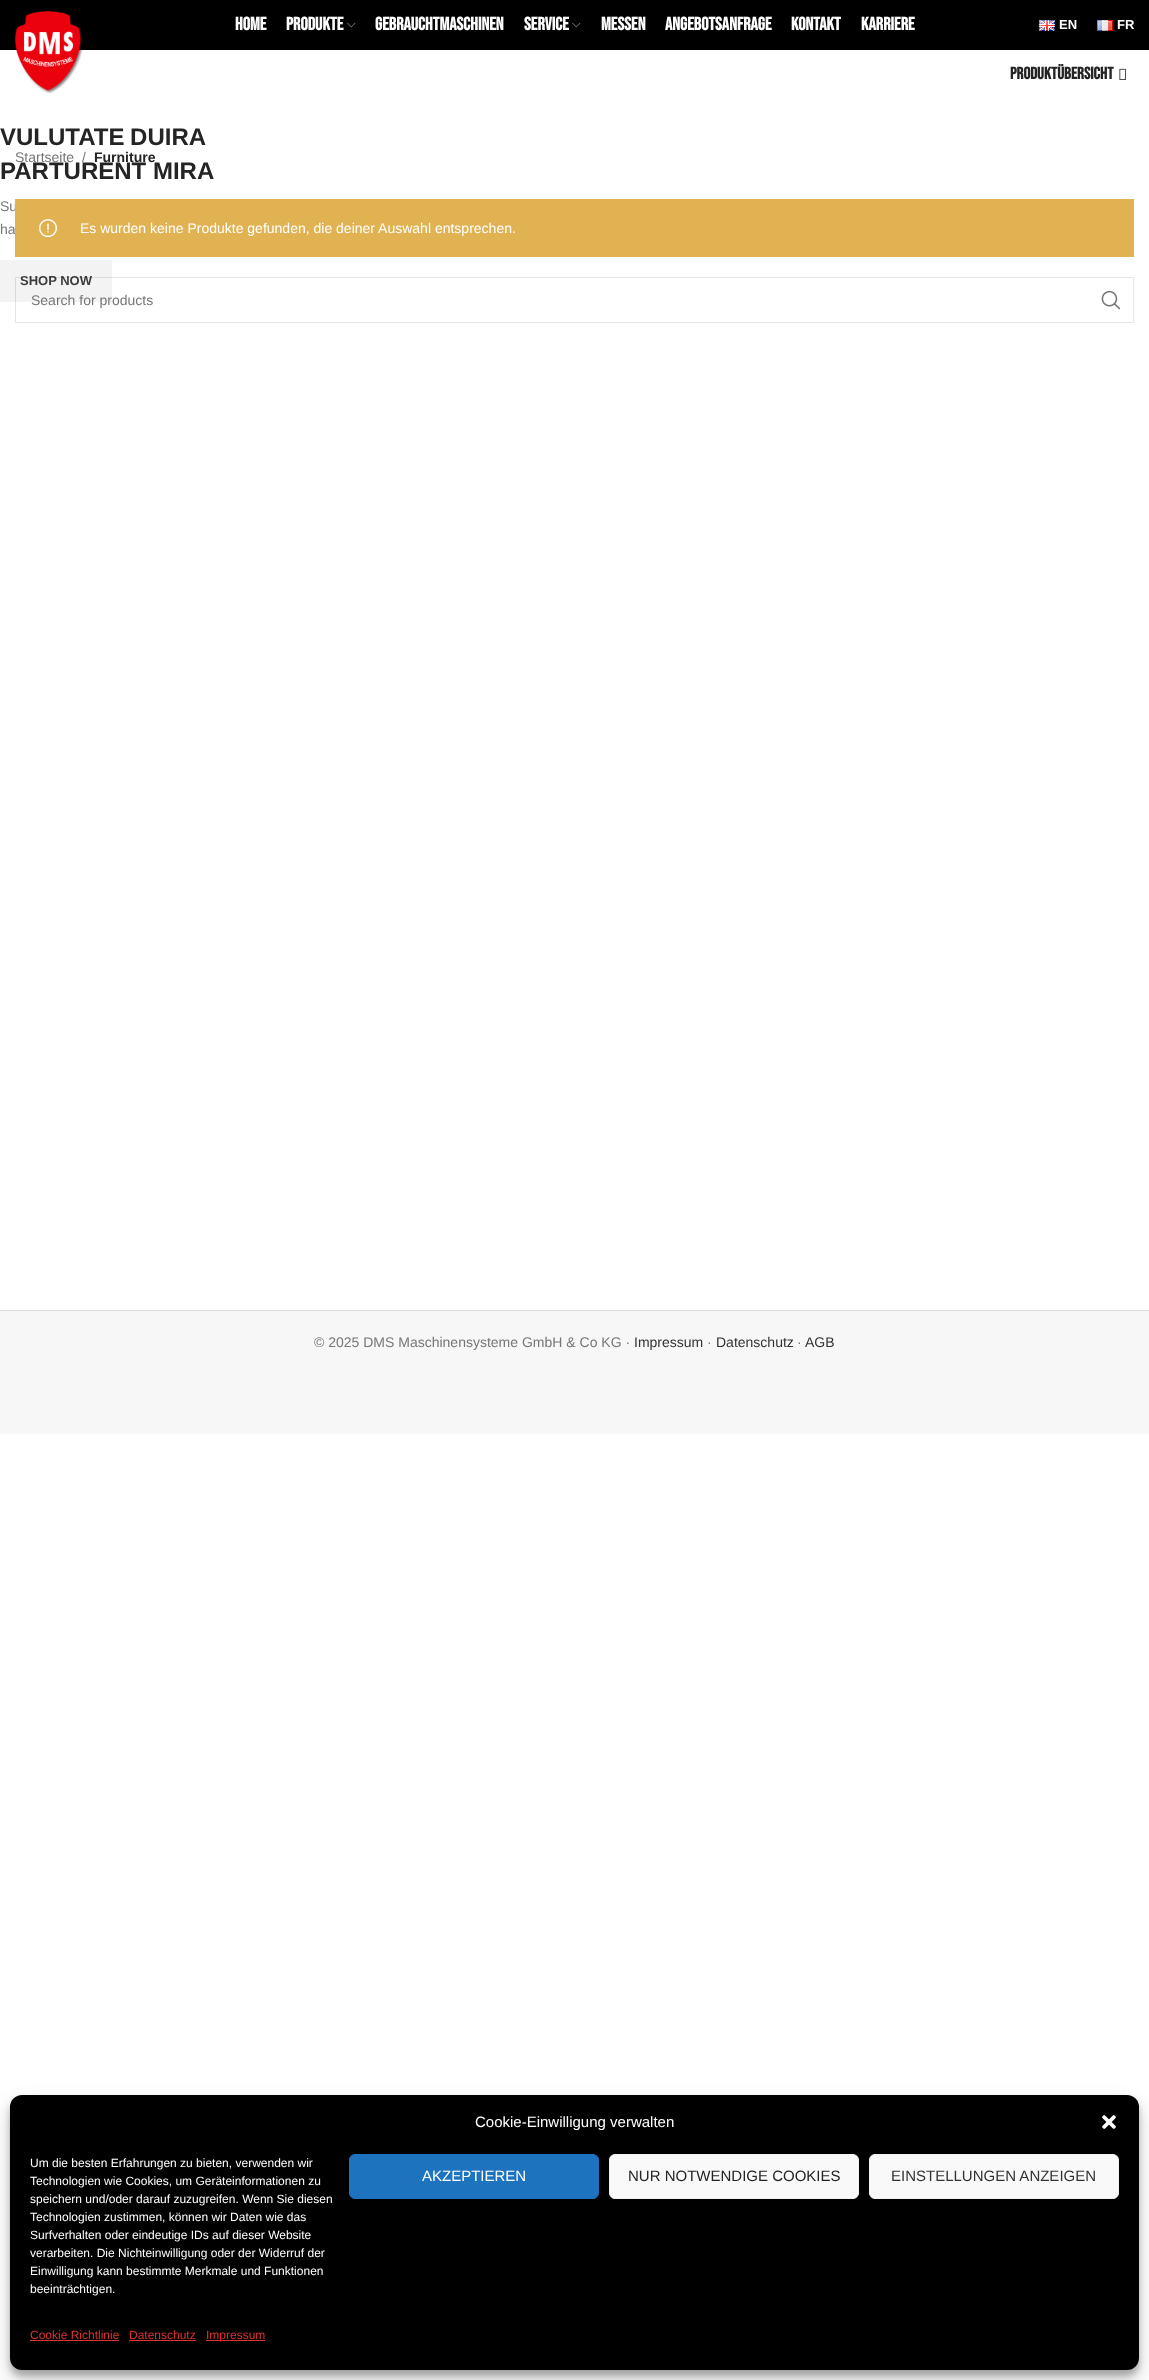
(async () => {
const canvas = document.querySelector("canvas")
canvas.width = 1149
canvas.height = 2380
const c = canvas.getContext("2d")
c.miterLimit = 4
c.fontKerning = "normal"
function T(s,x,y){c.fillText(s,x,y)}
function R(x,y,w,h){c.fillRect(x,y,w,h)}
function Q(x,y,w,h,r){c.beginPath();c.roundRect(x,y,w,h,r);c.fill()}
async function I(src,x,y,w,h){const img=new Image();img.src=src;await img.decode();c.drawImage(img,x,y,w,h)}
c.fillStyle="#fff"
R(0,0,1149,2380)
c.fillStyle="#000"
R(0,0,1149,50)
await I("1.png",15,11,68,83)
c.font="bold 18.25px Bebas Neue"
c.fillStyle="#fff"
T("HOME",235,30)
T("PRODUKTE",286,30)
await I("2.png",347,22,9,6)
T("GEBRAUCHTMASCHINEN",375,30)
T("SERVICE",524,30)
await I("2.png",572,22,9,6)
T("MESSEN",601,30)
T("ANGEBOTSANFRAGE",665,30)
T("KONTAKT",791,30)
T("KARRIERE",861,30)
await I("3.png",1039,20,16,11)
c.font="bold 13px Liberation Sans"
T("EN",1059,29)
await I("4.png",1097,20,16,11)
T("FR",1117,29)
c.font="bold 17px Bebas Neue"
c.fillStyle="#242424"
T("PRODUKTÜBERSICHT",1010,79)
await I("5.png",1119,68,7,12)
c.wordSpacing="-1px"
c.font="bold 24px Liberation Sans"
T("VULUTATE DUIRA",0,145)
c.wordSpacing="0px"
T("PARTURENT MIRA",0,179)
c.font="14px Liberation Sans"
c.fillStyle="#767676"
T("Su",0,211)
T("ha",0,234)
c.fillStyle="#f3f3f3"
R(0,260,112,42)
c.font="bold 13px Liberation Sans"
c.fillStyle="#3e3e3e"
T("SHOP NOW",20,285)
c.font="14px Liberation Sans"
c.fillStyle="#767676"
T("Startseite",15,162)
T("/",82,162)
c.font="bold 14px Liberation Sans"
c.fillStyle="#242424"
T("Furniture",94,162)
c.fillStyle="#e0b252"
R(15,199,1119,58)
await I("6.png",39,219,18,19)
c.font="14px Liberation Sans"
c.fillStyle="#fff"
T("Es wurden keine Produkte gefunden, die deiner Auswahl entsprechen.",80,233)
c.strokeStyle="#0000001a"
c.strokeRect(15.5,277.5,1118,45)
c.fillStyle="#767676"
T("Search for products",31,305)
await I("7.png",1101,290,20,20)
c.fillStyle="#f7f7f7"
R(0,1311,1149,123)
c.fillStyle="#ddd"
R(0,1310,1149,1)
c.fillStyle="#767676"
T("© 2025 DMS Maschinensysteme GmbH & Co KG ·",314,1347)
c.fillStyle="#333"
T("Impressum",634,1347)
c.fillStyle="#767676"
T("·",707,1347)
c.fillStyle="#333"
T("Datenschutz",716,1347)
c.fillStyle="#767676"
T("·",797,1347)
c.fillStyle="#333"
T("AGB",805,1347)
c.fillStyle="#0000003b"
c.filter="blur(3px)"
c.beginPath()
c.roundRect(10,2101,1129,275,12)
c.fill()
c.filter="none"
c.fillStyle="#00000030"
c.filter="blur(10px)"
c.beginPath()
c.roundRect(10,2105,1129,275,12)
c.fill()
c.filter="none"
c.fillStyle="#000"
Q(10,2095,1129,275,12)
c.font="15px Liberation Sans"
c.fillStyle="#fff"
T("Cookie-Einwilligung verwalten",475,2127)
await I("8.png",1102,2115,14,14)
c.font="12px Liberation Sans"
T("Um die besten Erfahrungen zu bieten, verwenden wir",30,2167)
T("Technologien wie Cookies, um Geräteinformationen zu",30,2185)
T("speichern und/oder darauf zuzugreifen. Wenn Sie diesen",30,2203)
T("Technologien zustimmen, können wir Daten wie das",30,2221)
T("Surfverhalten oder eindeutige IDs auf dieser Website",30,2239)
T("verarbeiten. Die Nichteinwilligung oder der Widerruf der",30,2257)
T("Einwilligung kann bestimmte Merkmale und Funktionen",30,2275)
T("beeinträchtigen.",30,2293)
c.fillStyle="#1e73be"
c.beginPath()
c.roundRect(349.5,2154.5,249,44,5.5)
c.fill()
c.strokeStyle="#1e73be"
c.stroke()
c.font="15px Liberation Sans"
c.fillStyle="#fff"
T("AKZEPTIEREN",422,2181)
c.fillStyle="#f9f9f9"
c.beginPath()
c.roundRect(609.5,2154.5,249,44,5.5)
c.fill()
c.strokeStyle="#f2f2f2"
c.stroke()
c.fillStyle="#242424"
T("NUR NOTWENDIGE COOKIES",628,2181)
c.fillStyle="#f9f9f9"
c.beginPath()
c.roundRect(869.5,2154.5,249,44,5.5)
c.fill()
c.stroke()
c.fillStyle="#333"
T("EINSTELLUNGEN ANZEIGEN",891,2181)
c.font="12px Liberation Sans"
c.fillStyle="#d33"
T("Cookie Richtlinie",30,2339)
R(30,2340,89,1)
T("Datenschutz",129,2339)
R(129,2340,67,1)
R(206,2340,59,1)
T("Impressum",206,2339)
})()
